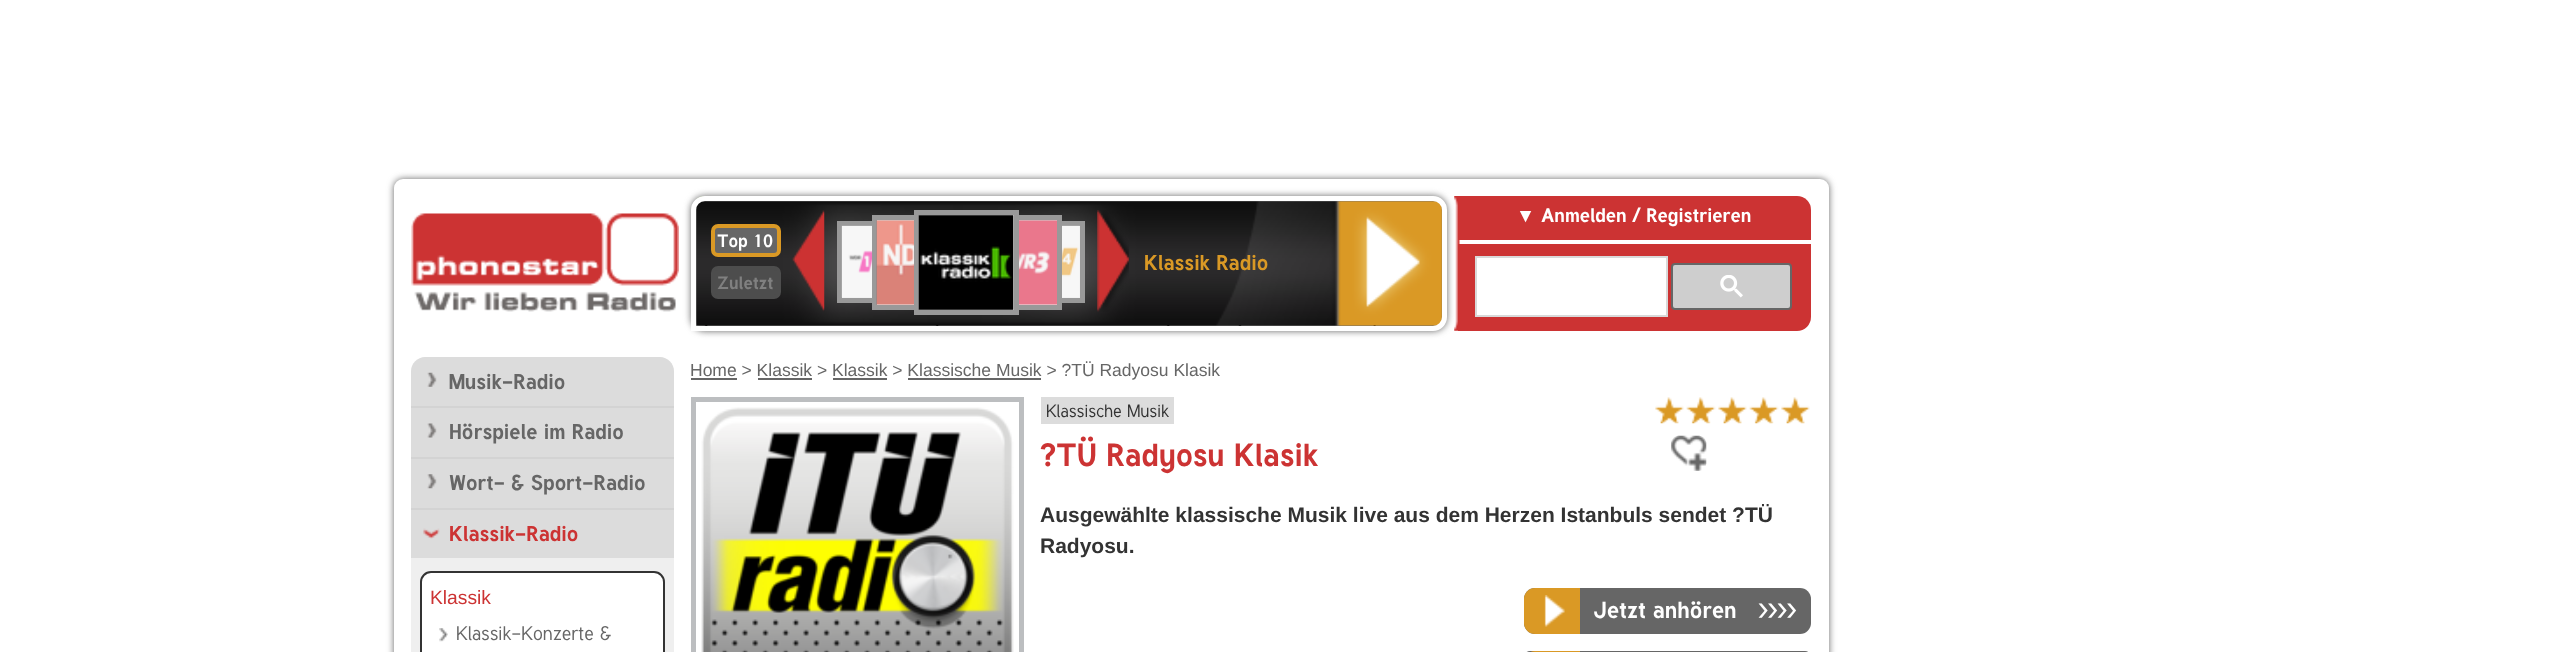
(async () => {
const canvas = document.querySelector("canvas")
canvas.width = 2570
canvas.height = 652
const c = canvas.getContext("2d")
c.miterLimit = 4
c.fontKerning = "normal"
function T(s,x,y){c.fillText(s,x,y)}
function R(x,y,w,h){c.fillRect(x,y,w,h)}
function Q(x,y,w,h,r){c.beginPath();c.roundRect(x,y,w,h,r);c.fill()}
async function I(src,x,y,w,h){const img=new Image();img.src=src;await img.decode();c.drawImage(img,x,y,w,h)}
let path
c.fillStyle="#fff"
R(0,0,2570,652)
c.fillStyle="#666"
c.filter="blur(3.5px)"
c.beginPath()
c.roundRect(394,179,1435,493,9)
c.fill()
c.filter="none"
c.fillStyle="#fff"
Q(394,179,1435,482,9)
await I("1.png",411,213,268,99)
c.fillStyle="#666"
c.filter="blur(3.5px)"
c.beginPath()
c.roundRect(691,196,756,135,14)
c.fill()
c.filter="none"
await I("2.png",696,196,746,130)
c.beginPath()
c.roundRect(693.5,198.5,751,130,[11.5,11.5,11.5,0])
c.strokeStyle="#fff"
c.lineWidth=5
c.stroke()
c.beginPath()
c.roundRect(713,226,66,29,5)
c.fill()
c.strokeStyle="#da9925"
c.lineWidth=4
c.stroke()
c.font="bold 17.5px Tuffy"
c.fillStyle="#fff"
T("Top 10",717,247)
c.fillStyle="#4d4d4d"
c.beginPath()
c.roundRect(713,268,66,29,5)
c.fill()
c.strokeStyle="#4d4d4d"
c.stroke()
c.fillStyle="#808080"
T("Zuletzt",717,289)
await I("3.png",792,210,33,102)
c.fillStyle="#dcdcdc"
R(877,220,37,1)
c.strokeStyle="#999"
c.lineWidth=5
c.strokeRect(839.5,223.5,77,77)
c.strokeRect(874.5,217.5,89,90)
R(1019,220,38,1)
c.strokeRect(1005.5,223.5,77,77)
c.strokeRect(970.5,217.5,89,90)
c.beginPath()
c.rect(916.5,212.5,100,100)
c.fill()
c.stroke()
await I("4.png",918,215,96,95)
c.fillStyle="#eee"
R(877,221,37,84)
await I("5.png",876,220,38,85)
R(1019,221,38,84)
await I("6.png",1019,220,38,85)
R(842,226,30,72)
await I("7.png",841,225,31,73)
R(1062,226,18,72)
await I("8.png",1062,225,18,73)
await I("9.png",1097,210,32,102)
c.save()
c.beginPath()
c.rect(1145,201,297,125)
c.clip()
c.font="bold 21px Tuffy"
c.fillStyle="#da9925"
T("Klassik Radio",1144,270)
c.restore()
c.fillStyle="#c33"
c.beginPath()
c.roundRect(1458,196,353,135,[0,14,14,0])
c.fill()
c.fillStyle="#fff"
R(1458,240,353,4)
await I("10.png",1454,196,6,135)
c.font="19.25px Liberation Sans"
T("▼",1516,222)
c.font="bold 19.25px Tuffy"
T("Anmelden / Registrieren",1541,222)
c.beginPath()
c.rect(1476,257,191,59)
c.fill()
c.strokeStyle="#d9d9d9"
c.lineWidth=2
c.stroke()
c.fillStyle="#cecece"
c.beginPath()
c.roundRect(1672,264,119,45,3)
c.fill()
c.strokeStyle="#666"
c.stroke()
await I("11.png",1720,275,23,23)
c.fillStyle="#dcdcdc"
path = new Path2D("M425 357h235c7.5 0 14 6.5 14 14v281c0 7.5-6.5 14-14 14h-249v-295c0-7.5 6.5-14 14-14z")
c.fill(path)
c.fillStyle="#d3d3d3"
R(411,406,263,2)
await I("12.png",427,372,10,15)
c.font="bold 21px Tuffy"
c.fillStyle="#666"
T("Musik-Radio",449,389)
c.fillStyle="#d3d3d3"
R(411,457,263,2)
await I("13.png",427,423,10,15)
c.fillStyle="#666"
T("Hörspiele im Radio",449,439)
c.fillStyle="#d3d3d3"
R(411,508,263,2)
await I("14.png",427,474,10,15)
c.fillStyle="#666"
T("Wort- & Sport-Radio",449,490)
await I("15.png",423,528,17,11)
c.fillStyle="#c33"
T("Klassik-Radio",449,541)
c.fillStyle="#efefef"
R(411,558,263,94)
c.fillStyle="#fff"
c.beginPath()
c.roundRect(421,572,243,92,10)
c.fill()
c.strokeStyle="#333"
c.stroke()
c.font="19.25px Liberation Sans"
c.fillStyle="#c33"
T("Klassik",430,604)
await I("16.png",439,628,9,14)
c.font="19.25px Tuffy"
c.fillStyle="#666"
T("Klassik-Konzerte &",456,640)
R(691,378,46,2)
c.font="17.5px Liberation Sans"
T("Home > Klassik > Klassik > Klassische Musik > ?TÜ Radyosu Klasik",690,376)
R(758,378,54,2)
R(833,378,54,2)
R(908,378,133,2)
c.strokeStyle="#bcbec0"
c.lineWidth=5
c.strokeRect(693.5,399.5,328,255)
await I("17.png",701,407,313,245)
c.fillStyle="#dcdcdc"
R(1041,397,133,27)
c.font="17.5px Tuffy"
c.fillStyle="#333"
T("Klassische Musik",1046,417)
c.font="bold 31.5px Tuffy"
c.fillStyle="#c33"
T("?TÜ Radyosu Klasik",1040,466)
await I("18.png",1655,397,29,27)
await I("19.png",1686,397,30,27)
await I("18.png",1718,397,29,27)
await I("20.png",1749,397,30,27)
await I("18.png",1781,397,29,27)
await I("21.png",1671,435,36,36)
c.font="bold 21px Liberation Sans"
c.fillStyle="#333"
T("Ausgewählte klassische Musik live aus dem Herzen Istanbuls sendet ?TÜ",1040,522)
T("Radyosu.",1040,553)
c.fillStyle="#666"
Q(1524,588,287,46,11)
c.fillStyle="#da9925"
c.beginPath()
c.roundRect(1524,588,56,46,[11,0,0,11])
c.fill()
await I("22.png",1544,595,21,32)
c.font="bold 22.75px Tuffy"
c.fillStyle="#fff"
T("Jetzt anhören",1593,618)
c.font="bold 22.75px 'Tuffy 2'"
T("››››",1758,618)
c.fillStyle="#666"
Q(1524,651,287,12,11)
c.fillStyle="#da9925"
path = new Path2D("M1535 651h45v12h-45c-6 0-11-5-11-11v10c0-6 5-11 11-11z")
c.fill(path)
})()
